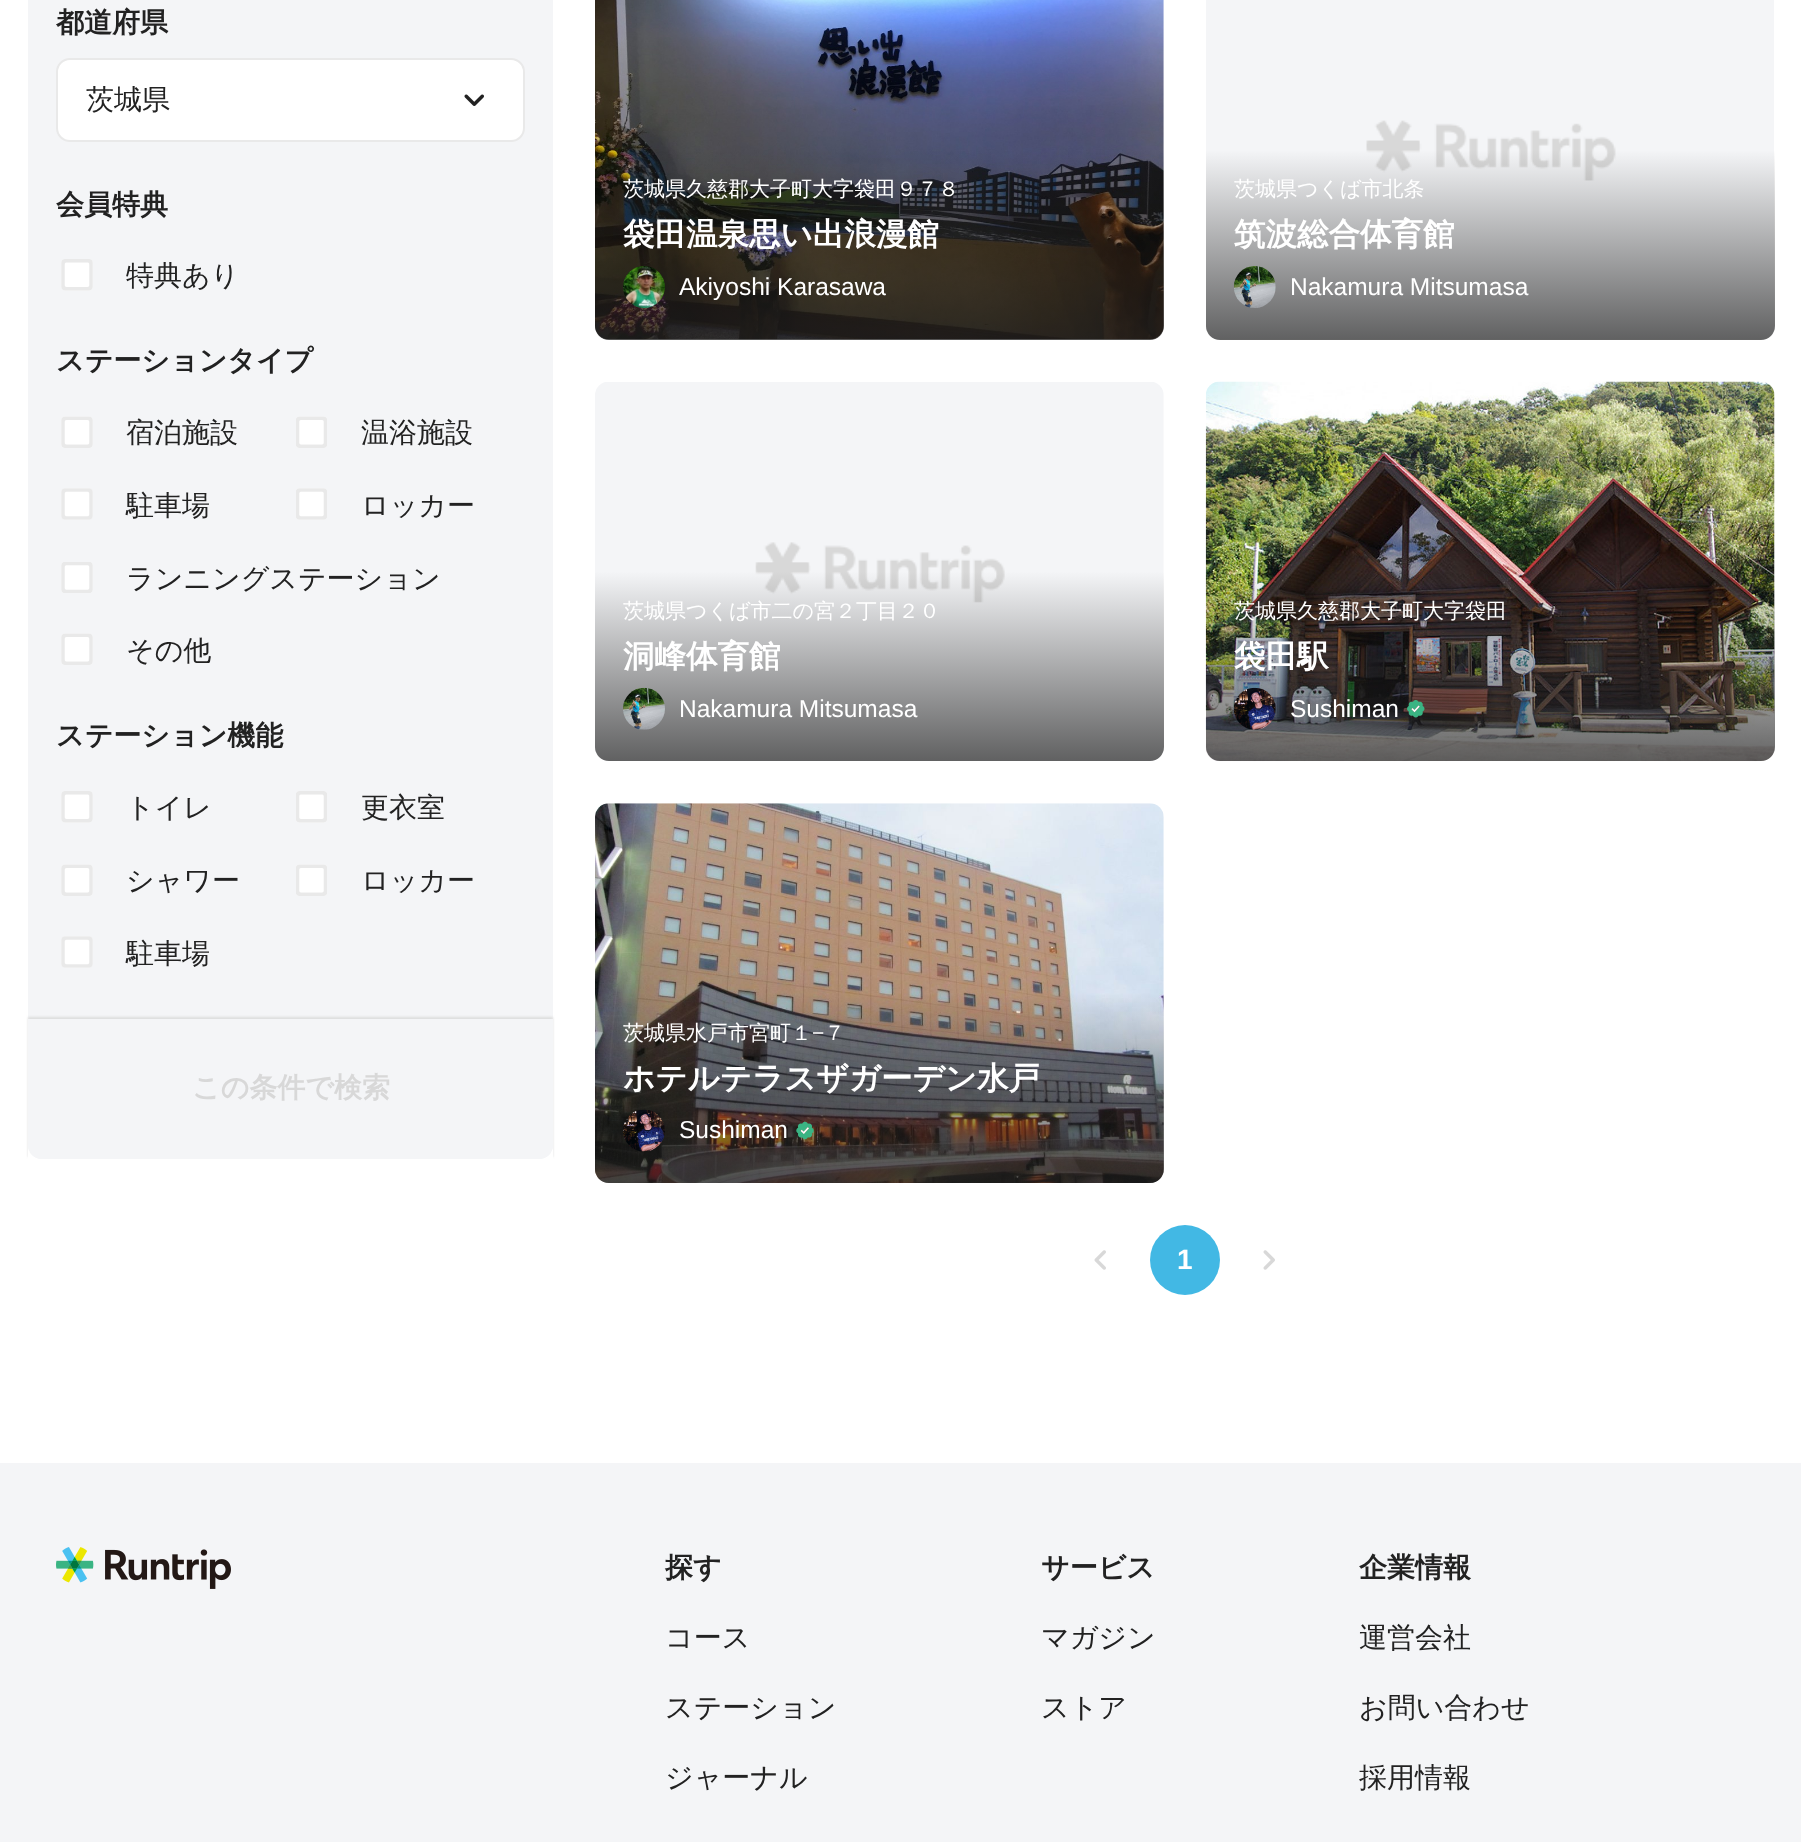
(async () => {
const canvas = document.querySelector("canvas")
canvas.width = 1801
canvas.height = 1842
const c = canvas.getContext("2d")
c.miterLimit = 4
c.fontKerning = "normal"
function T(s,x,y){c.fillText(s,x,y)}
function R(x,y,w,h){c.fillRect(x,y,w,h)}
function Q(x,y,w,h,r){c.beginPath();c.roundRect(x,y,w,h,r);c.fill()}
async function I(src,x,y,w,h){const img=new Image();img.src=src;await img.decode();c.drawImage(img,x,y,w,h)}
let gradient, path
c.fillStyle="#fff"
R(0,0,1801,1842)
c.fillStyle="#f4f5f7"
Q(28,-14,525,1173,14)
c.font="bold 28px WenQuanYi Zen Hei"
c.fillStyle="#222"
T("都道府県",56,32)
c.fillStyle="#fff"
c.beginPath()
c.roundRect(57,59,467,82,13)
c.fill()
c.strokeStyle="#e9e9e9"
c.lineWidth=2
c.stroke()
c.font="500 28px WenQuanYi Zen Hei"
c.fillStyle="#222"
T("茨城県",86,109)
await I("1.png",464,94,20,12)
c.font="bold 28px WenQuanYi Zen Hei"
T("会員特典",56,214)
await I("2.png",61,259,32,32)
c.font="500 28px WenQuanYi Zen Hei"
T("特典あり",126,285)
c.font="bold 28px WenQuanYi Zen Hei"
T("ステーションタイプ",56,370)
await I("3.png",61,416,32,32)
c.font="500 28px WenQuanYi Zen Hei"
T("宿泊施設",126,442)
await I("4.png",296,416,31,32)
T("温浴施設",361,442)
await I("5.png",61,488,32,32)
T("駐車場",126,515)
await I("6.png",296,488,31,32)
T("ロッカー",361,515)
await I("7.png",61,562,32,31)
T("ランニングステーション",126,588)
await I("3.png",61,633,32,32)
T("その他",126,660)
c.font="bold 28px WenQuanYi Zen Hei"
T("ステーション機能",56,745)
await I("2.png",61,791,32,32)
c.font="500 28px WenQuanYi Zen Hei"
T("トイレ",126,817)
await I("8.png",296,791,31,32)
T("更衣室",361,817)
await I("3.png",61,864,32,32)
T("シャワー",126,890)
await I("4.png",296,864,31,32)
T("ロッカー",361,890)
await I("5.png",61,936,32,32)
T("駐車場",126,963)
c.save()
path = new Path2D("M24 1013h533v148h-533zm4 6h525v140h-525z")
c.clip(path,"evenodd")
c.fillStyle="#ddd"
c.filter="blur(1px)"
c.beginPath()
c.rect(28,1017,525,140)
c.fill()
c.filter="none"
c.restore()
c.fillStyle="#f4f5f7"
c.beginPath()
c.roundRect(28,1019,525,140,[0,0,14,14])
c.fill()
c.font="bold 28px WenQuanYi Zen Hei"
c.fillStyle="#d8d8d8"
T("この条件で検索",192,1097)
await I("9.png",595,0,569,340)
gradient = c.createLinearGradient(879,-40,879,340)
gradient.addColorStop(.5,"#22222200")
gradient.addColorStop(1,"#222222b3")
c.fillStyle = gradient
Q(595,-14,569,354,14)
c.font="500 21px WenQuanYi Zen Hei"
c.fillStyle="#fff"
T("茨城県久慈郡大子町大字袋田９７８",623,196)
c.font="bold 31.5px WenQuanYi Zen Hei"
T("袋田温泉思い出浪漫館",623,245)
await I("10.png",623,266,42,42)
c.font="24.5px Liberation Sans"
T("Akiyoshi Karasawa",679,295)
await I("11.png",1206,0,568,339)
gradient = c.createLinearGradient(1490,-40,1490,340)
gradient.addColorStop(.5,"#22222200")
gradient.addColorStop(1,"#222222b3")
c.fillStyle = gradient
Q(1206,-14,569,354,14)
c.font="500 21px WenQuanYi Zen Hei"
c.fillStyle="#fff"
T("茨城県つくば市北条",1234,196)
c.font="bold 31.5px WenQuanYi Zen Hei"
T("筑波総合体育館",1234,245)
await I("12.png",1233,266,43,42)
c.font="24.5px Liberation Sans"
T("Nakamura Mitsumasa",1290,295)
await I("13.png",595,382,569,379)
gradient = c.createLinearGradient(879,382,879,761)
gradient.addColorStop(.5,"#22222200")
gradient.addColorStop(1,"#222222b3")
c.fillStyle = gradient
Q(595,382,569,379,14)
c.font="500 21px WenQuanYi Zen Hei"
c.fillStyle="#fff"
T("茨城県つくば市二の宮２丁目２０",623,618)
c.font="bold 31.5px WenQuanYi Zen Hei"
T("洞峰体育館",623,667)
await I("14.png",623,687,42,43)
c.font="24.5px Liberation Sans"
T("Nakamura Mitsumasa",679,717)
await I("15.png",1205,381,570,381)
gradient = c.createLinearGradient(1490,382,1490,761)
gradient.addColorStop(.5,"#22222200")
gradient.addColorStop(1,"#222222b3")
c.fillStyle = gradient
Q(1206,382,569,379,14)
c.font="500 21px WenQuanYi Zen Hei"
c.fillStyle="#fff"
T("茨城県久慈郡大子町大字袋田",1234,618)
c.font="bold 31.5px WenQuanYi Zen Hei"
T("袋田駅",1234,667)
await I("16.png",1233,687,43,43)
c.font="24.5px Liberation Sans"
T("Sushiman",1290,717)
await I("17.png",1407,700,18,18)
await I("18.png",595,803,569,380)
gradient = c.createLinearGradient(879,803,879,1183)
gradient.addColorStop(.5,"#22222200")
gradient.addColorStop(1,"#222222b3")
c.fillStyle = gradient
Q(595,803,569,380,14)
c.font="500 21px WenQuanYi Zen Hei"
c.fillStyle="#fff"
T("茨城県水戸市宮町１",623,1040)
c.font="21px Liberation Sans"
T("−",812,1040)
c.font="500 21px WenQuanYi Zen Hei"
T("７",824,1040)
c.font="bold 31.5px WenQuanYi Zen Hei"
T("ホテルテラスザガーデン水戸",623,1089)
await I("19.png",623,1109,42,43)
c.font="24.5px Liberation Sans"
T("Sushiman",679,1138)
await I("20.png",796,1121,18,19)
await I("21.png",1094,1250,12,20)
c.fillStyle="#42b8e4"
c.beginPath()
c.arc(1185,1260,35,0,7)
c.fill()
c.font="bold 28px Liberation Sans"
c.fillStyle="#fff"
T("1",1177,1269)
await I("22.png",1263,1250,12,20)
c.fillStyle="#f4f5f7"
R(0,1463,1801,379)
await I("23.png",56,1547,175,42)
c.font="bold 28px WenQuanYi Zen Hei"
c.fillStyle="#222"
T("探す",665,1577)
c.font="500 28px WenQuanYi Zen Hei"
T("コース",665,1647)
T("ステーション",665,1717)
T("ジャーナル",665,1787)
c.font="bold 28px WenQuanYi Zen Hei"
T("サービス",1041,1577)
c.font="500 28px WenQuanYi Zen Hei"
T("マガジン",1041,1647)
T("ストア",1041,1717)
c.font="bold 28px WenQuanYi Zen Hei"
T("企業情報",1359,1577)
c.font="500 28px WenQuanYi Zen Hei"
T("運営会社",1359,1647)
T("お問い合わせ",1359,1717)
T("採用情報",1359,1787)
})()
